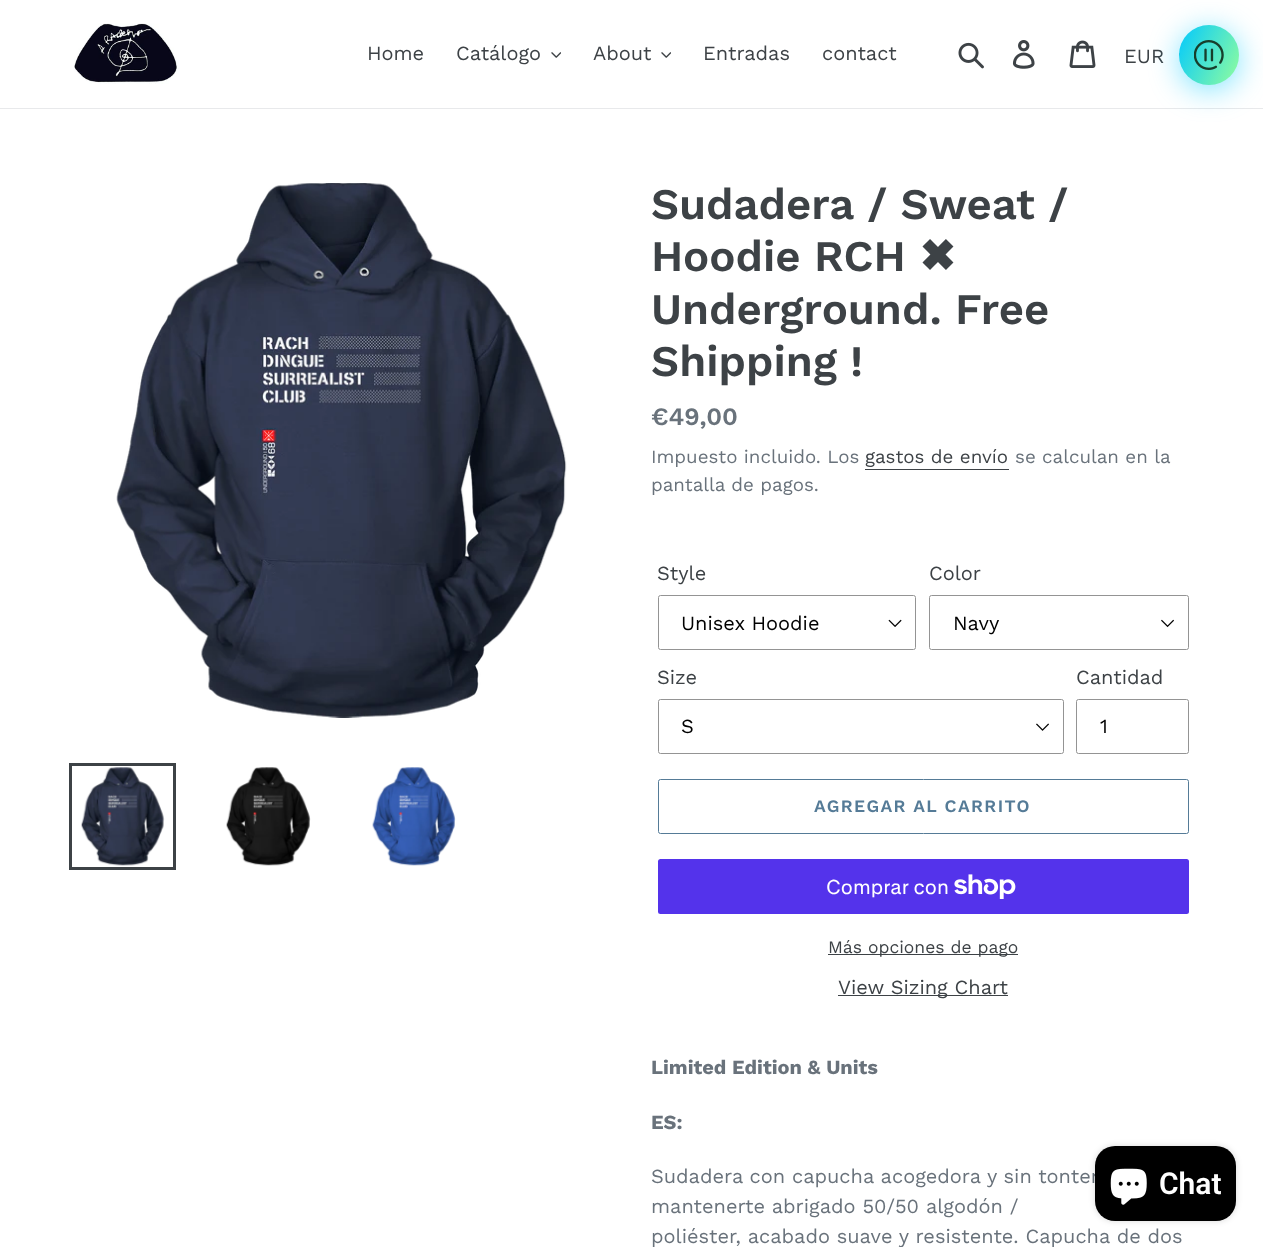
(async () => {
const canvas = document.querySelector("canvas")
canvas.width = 1263
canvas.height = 1247
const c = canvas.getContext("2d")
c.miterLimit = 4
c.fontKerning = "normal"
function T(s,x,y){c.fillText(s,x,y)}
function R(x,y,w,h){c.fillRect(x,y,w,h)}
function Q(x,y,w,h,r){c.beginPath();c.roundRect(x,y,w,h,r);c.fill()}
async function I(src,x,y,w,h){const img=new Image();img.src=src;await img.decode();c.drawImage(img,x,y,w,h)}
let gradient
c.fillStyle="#fff"
R(0,0,1263,1247)
c.fillStyle="#e8e9eb"
R(0,108,1263,1)
await I("1.png",74,23,105,61)
c.font="20px Work Sans"
c.fillStyle="#3d4246"
T("Home",367,60)
T("Catálogo",456,60)
await I("2.png",551,52,10,6)
T("About",593,60)
await I("2.png",661,52,10,6)
T("Entradas",703,60)
T("contact",822,60)
await I("3.png",958,42,26,27)
await I("4.png",1012,40,23,29)
await I("5.png",1069,40,27,28)
T("EUR",1124,63)
await I("6.png",1179,53,1,3)
c.fillStyle="#00c9ff80"
c.filter="blur(15px)"
c.beginPath()
c.roundRect(1179,30,60,60,30)
c.fill()
c.filter="none"
gradient = c.createLinearGradient(1173,38,1245,72)
gradient.addColorStop(0,"#00c9ff")
gradient.addColorStop(1,"#92fe9d")
c.fillStyle = gradient
c.beginPath()
c.arc(1209,55,30,0,7)
c.fill()
await I("7.png",1194,40,30,30)
await I("8.png",116,183,451,535)
c.strokeStyle="#3d4246"
c.lineWidth=3
c.strokeRect(70.5,764.5,104,104)
await I("9.png",81,767,84,99)
await I("10.png",226,767,85,99)
await I("11.png",372,767,84,99)
c.font="600 43.75px Work Sans"
c.fillStyle="#3d4246"
T("Sudadera / Sweat /",651,219)
T("Hoodie RCH",651,271)
c.font="bold 43.75px DejaVu Sans"
T("✖",919,271)
c.font="600 43.75px Work Sans"
T("Underground. Free",651,324)
T("Shipping !",651,376)
c.font="600 25px Work Sans"
c.fillStyle="#69727b"
T("€49,00",651,425)
c.font="18.75px Work Sans"
T("Impuesto incluido. Los",651,463)
c.fillStyle="#3d4246"
T("gastos de envío",865,463)
R(865,469,144,1)
c.fillStyle="#69727b"
T("se calculan en la",1015,463)
T("pantalla de pagos.",651,491)
c.font="20px Work Sans"
c.fillStyle="#3d4246"
T("Style",657,580)
await I("12.png",888,619,14,8)
c.beginPath()
c.roundRect(658.5,595.5,257,54,2)
c.strokeStyle="#949494"
c.lineWidth=1
c.stroke()
c.fillStyle="#000"
T("Unisex Hoodie",681,630)
c.fillStyle="#3d4246"
T("Color",929,580)
await I("13.png",1161,619,13,9)
c.beginPath()
c.roundRect(929.5,595.5,259,54,2)
c.stroke()
c.fillStyle="#000"
T("Navy",953,630)
c.fillStyle="#3d4246"
T("Size",657,684)
await I("14.png",1036,723,13,8)
c.beginPath()
c.roundRect(658.5,699.5,405,54,2)
c.stroke()
c.fillStyle="#000"
T("S",681,733)
c.fillStyle="#3d4246"
T("Cantidad",1076,684)
c.beginPath()
c.roundRect(1076.5,699.5,112,54,2)
c.stroke()
c.fillStyle="#000"
T("1",1100,733)
c.beginPath()
c.roundRect(658.5,779.5,530,54,2)
c.strokeStyle="#557b97"
c.stroke()
c.letterSpacing="1.4px"
c.font="600 17.5px Work Sans"
c.fillStyle="#557b97"
T("AGREGAR AL CARRITO",814,812)
c.fillStyle="#5433eb"
Q(658,859,531,55,2.5)
c.letterSpacing="0px"
c.font="20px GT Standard"
c.fillStyle="#fff"
T("Comprar con",826,894)
await I("15.png",954,874,62,25)
c.fillStyle="#3d4246"
R(828,954,190,1)
c.font="17.5px Work Sans"
T("Más opciones de pago",828,953)
R(838,995,170,1)
c.font="20px Work Sans"
T("View Sizing Chart",838,994)
c.font="bold 20px Work Sans"
c.fillStyle="#69727b"
T("Limited Edition & Units",651,1074)
T("ES:",651,1129)
c.font="20px Work Sans"
T("Sudadera con capucha acogedora y sin tonter",651,1183)
T("mantenerte abrigado 50/50 algodón /",651,1213)
T("poliéster, acabado suave y resistente. Capucha de dos",651,1243)
c.fillStyle="#00000026"
c.filter="blur(3px)"
c.beginPath()
c.roundRect(1095,1146,141,75,20)
c.fill()
c.filter="none"
c.fillStyle="#000"
Q(1095,1146,141,75,20)
await I("16.png",1110,1168,37,37)
c.font="600 30px Roboto"
c.fillStyle="#fff"
T("Chat",1159,1194)
})()
